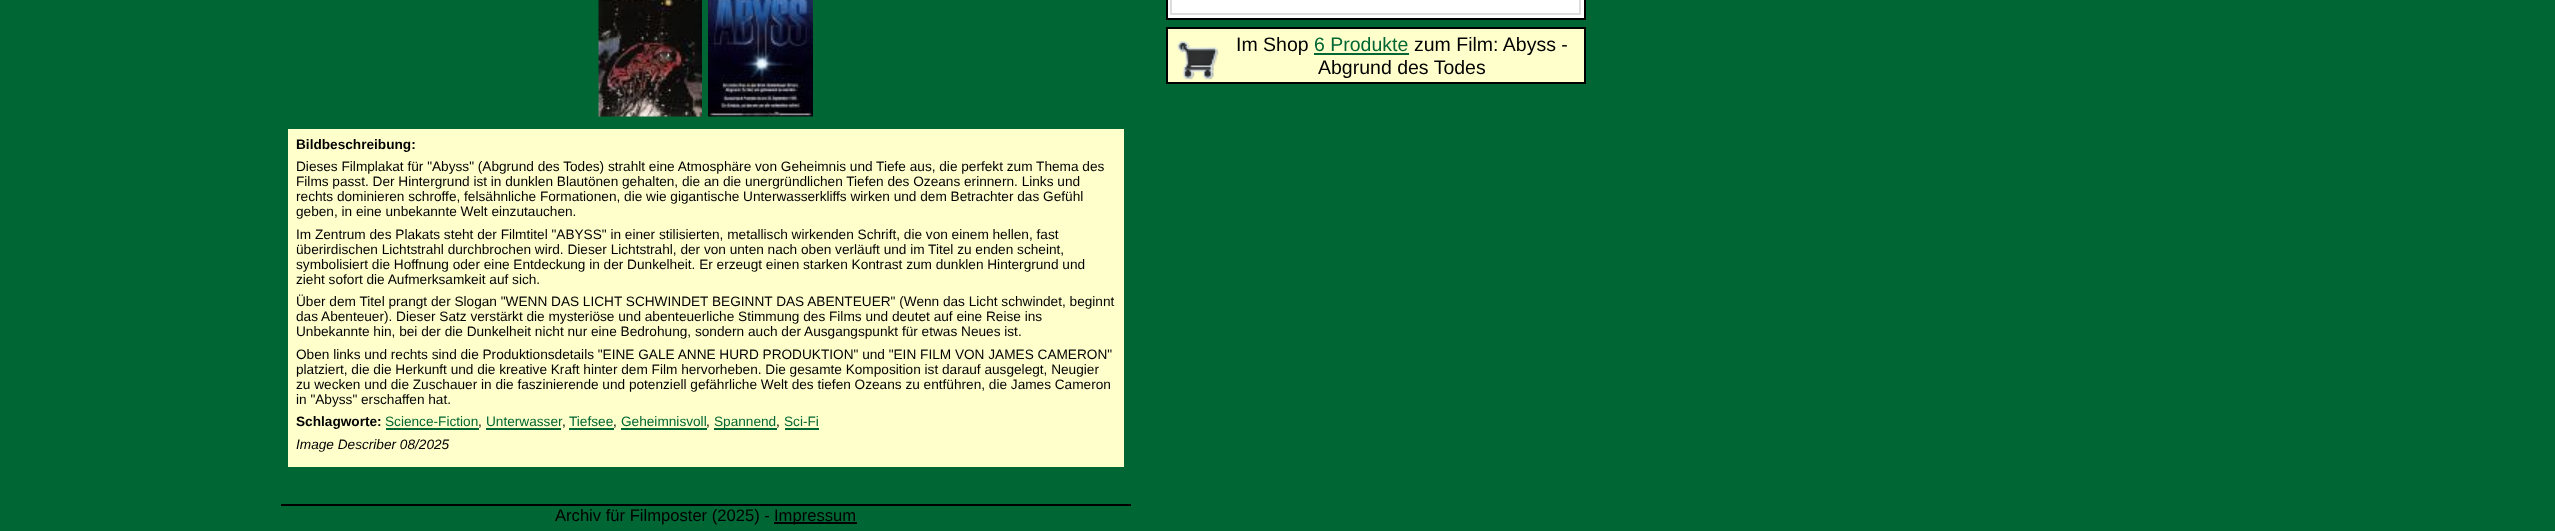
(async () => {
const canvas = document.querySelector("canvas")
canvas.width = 2555
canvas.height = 531
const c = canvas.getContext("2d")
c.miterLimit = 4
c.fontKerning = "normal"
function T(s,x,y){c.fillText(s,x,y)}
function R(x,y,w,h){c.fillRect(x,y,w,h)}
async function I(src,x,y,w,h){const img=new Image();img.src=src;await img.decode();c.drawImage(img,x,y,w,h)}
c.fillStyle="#063"
R(0,0,2555,531)
await I("1.png",598,0,104,117)
await I("2.png",708,0,105,117)
c.fillStyle="#fff"
c.beginPath()
c.rect(1167,-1,418,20)
c.fill()
c.strokeStyle="#000"
c.lineWidth=2
c.stroke()
c.strokeStyle="#ddd"
c.strokeRect(1171,-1,409,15)
c.fillStyle="#ffc"
c.beginPath()
c.rect(1167,28,418,55)
c.fill()
c.strokeStyle="#000"
c.stroke()
await I("3.png",1177,41,42,39)
c.font="19.5px Liberation Sans"
c.fillStyle="#000"
T("Im Shop",1236,51)
c.fillStyle="#063"
T("6 Produkte",1314,51)
R(1314,53,95,2)
c.fillStyle="#000"
T("zum Film: Abyss -",1414,51)
T("Abgrund des Todes",1318,74)
c.fillStyle="#ffc"
R(288,129,836,338)
c.font="bold 13.65px Liberation Sans"
c.fillStyle="#000"
T("Bildbeschreibung:",296,149)
c.font="13.65px Liberation Sans"
T("Dieses Filmplakat für \"Abyss\" (Abgrund des Todes) strahlt eine Atmosphäre von Geheimnis und Tiefe aus, die perfekt zum Thema des",296,171)
T("Films passt. Der Hintergrund ist in dunklen Blautönen gehalten, die an die unergründlichen Tiefen des Ozeans erinnern. Links und",296,186)
T("rechts dominieren schroffe, felsähnliche Formationen, die wie gigantische Unterwasserkliffs wirken und dem Betrachter das Gefühl",296,201)
T("geben, in eine unbekannte Welt einzutauchen.",296,216)
T("Im Zentrum des Plakats steht der Filmtitel \"ABYSS\" in einer stilisierten, metallisch wirkenden Schrift, die von einem hellen, fast",296,239)
T("überirdischen Lichtstrahl durchbrochen wird. Dieser Lichtstrahl, der von unten nach oben verläuft und im Titel zu enden scheint,",296,254)
T("symbolisiert die Hoffnung oder eine Entdeckung in der Dunkelheit. Er erzeugt einen starken Kontrast zum dunklen Hintergrund und",296,269)
T("zieht sofort die Aufmerksamkeit auf sich.",296,284)
T("Über dem Titel prangt der Slogan \"WENN DAS LICHT SCHWINDET BEGINNT DAS ABENTEUER\" (Wenn das Licht schwindet, beginnt",296,306)
T("das Abenteuer). Dieser Satz verstärkt die mysteriöse und abenteuerliche Stimmung des Films und deutet auf eine Reise ins",296,321)
T("Unbekannte hin, bei der die Dunkelheit nicht nur eine Bedrohung, sondern auch der Ausgangspunkt für etwas Neues ist.",296,336)
T("Oben links und rechts sind die Produktionsdetails \"EINE GALE ANNE HURD PRODUKTION\" und \"EIN FILM VON JAMES CAMERON\"",296,359)
T("platziert, die die Herkunft und die kreative Kraft hinter dem Film hervorheben. Die gesamte Komposition ist darauf ausgelegt, Neugier",296,374)
T("zu wecken und die Zuschauer in die faszinierende und potenziell gefährliche Welt des tiefen Ozeans zu entführen, die James Cameron",296,389)
T("in \"Abyss\" erschaffen hat.",296,404)
c.font="bold 13.65px Liberation Sans"
T("Schlagworte:",296,426)
c.font="13.65px Liberation Sans"
c.fillStyle="#063"
T("Science-Fiction",385,426)
R(386,428,93,2)
c.fillStyle="#000"
T(",",478,426)
c.fillStyle="#063"
T("Unterwasser",486,426)
R(486,428,75,2)
c.fillStyle="#000"
T(",",562,426)
c.fillStyle="#063"
T("Tiefsee",569,426)
R(569,428,45,2)
c.fillStyle="#000"
T(",",613,426)
c.fillStyle="#063"
T("Geheimnisvoll",621,426)
R(621,428,86,2)
c.fillStyle="#000"
T(",",706,426)
c.fillStyle="#063"
R(714,428,63,2)
T("Spannend",714,426)
c.fillStyle="#000"
T(",",776,426)
c.fillStyle="#063"
T("Sci-Fi",784,426)
R(785,428,34,2)
c.font="italic 13.65px Liberation Sans"
c.fillStyle="#000"
T("Image Describer 08/2025",296,449)
R(281,504,850,2)
c.font="16.6px Liberation Sans"
T("Archiv für Filmposter (2025) -",555,521)
R(774,522,83,2)
T("Impressum",774,521)
})()
